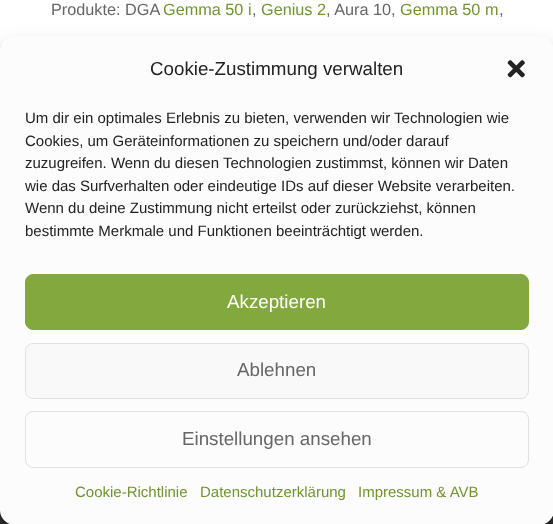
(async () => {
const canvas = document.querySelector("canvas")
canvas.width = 553
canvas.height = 524
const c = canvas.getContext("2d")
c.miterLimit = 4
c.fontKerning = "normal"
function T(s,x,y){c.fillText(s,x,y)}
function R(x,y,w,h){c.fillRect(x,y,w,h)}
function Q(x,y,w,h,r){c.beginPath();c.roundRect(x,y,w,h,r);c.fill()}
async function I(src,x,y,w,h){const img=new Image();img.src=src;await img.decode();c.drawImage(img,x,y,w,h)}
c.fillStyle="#fff"
R(0,0,553,524)
c.font="16.25px Liberation Sans"
c.fillStyle="#666"
T("Produkte: DGA",51,15)
c.fillStyle="#719430"
T("Gemma 50 i",163,15)
c.fillStyle="#666"
T(",",252,15)
c.fillStyle="#719430"
T("Genius 2",261,15)
c.fillStyle="#666"
T(", Aura 10,",326,15)
c.fillStyle="#719430"
T("Gemma 50 m",400,15)
c.fillStyle="#666"
T(",",499,15)
c.fillStyle="#333"
R(0,510,553,14)
c.fillStyle="#0000003b"
c.filter="blur(4px)"
c.beginPath()
c.roundRect(0,44,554,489,15)
c.fill()
c.filter="none"
c.fillStyle="#00000030"
c.filter="blur(12.5px)"
c.beginPath()
c.roundRect(0,49,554,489,15)
c.fill()
c.filter="none"
c.fillStyle="#fcfcfc"
Q(0,36,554,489,15)
c.font="18.75px Liberation Sans"
c.fillStyle="#222"
T("Cookie-Zustimmung verwalten",150,75)
await I("1.png",507,60,18,18)
c.font="15px Liberation Sans"
T("Um dir ein optimales Erlebnis zu bieten, verwenden wir Technologien wie",25,123)
T("Cookies, um Geräteinformationen zu speichern und/oder darauf",25,146)
T("zuzugreifen. Wenn du diesen Technologien zustimmst, können wir Daten",25,168)
T("wie das Surfverhalten oder eindeutige IDs auf dieser Website verarbeiten.",25,191)
T("Wenn du deine Zustimmung nicht erteilst oder zurückziehst, können",25,213)
T("bestimmte Merkmale und Funktionen beeinträchtigt werden.",25,236)
c.fillStyle="#83a83d"
c.beginPath()
c.roundRect(25.5,274.5,503,55,7.5)
c.fill()
c.strokeStyle="#83a83d"
c.stroke()
c.font="18.75px Liberation Sans"
c.fillStyle="#fff"
T("Akzeptieren",227,308)
c.fillStyle="#f9f9f9"
c.beginPath()
c.roundRect(25.5,343.5,503,55,7.5)
c.fill()
c.strokeStyle="#e1e1e1"
c.stroke()
c.fillStyle="#666"
T("Ablehnen",237,376)
c.beginPath()
c.roundRect(25.5,411.5,503,56,7.5)
c.stroke()
T("Einstellungen ansehen",182,445)
c.font="15px Liberation Sans"
c.fillStyle="#719430"
T("Cookie-Richtlinie",75,497)
T("Datenschutzerklärung",200,497)
T("Impressum & AVB",358,497)
})()
